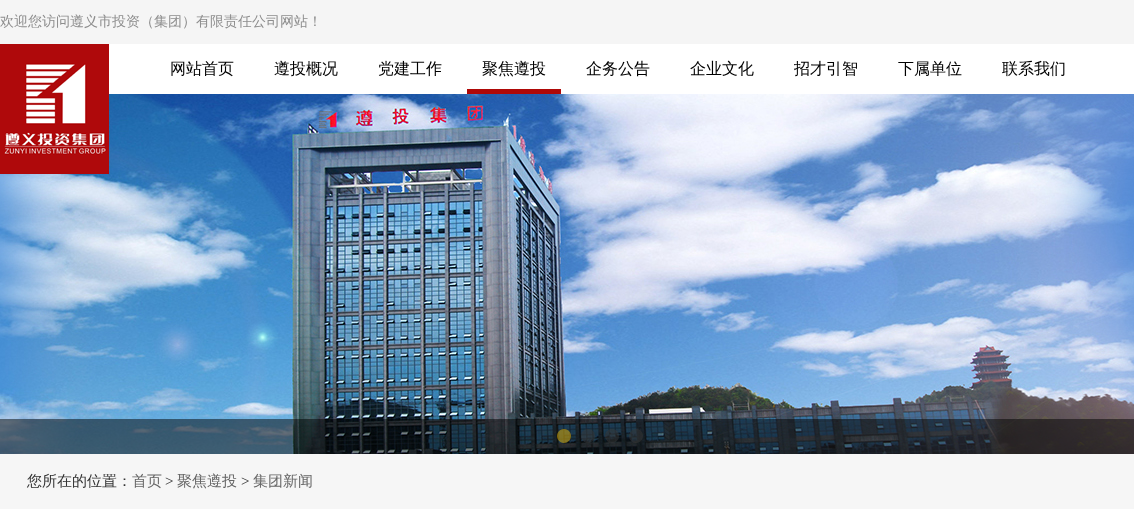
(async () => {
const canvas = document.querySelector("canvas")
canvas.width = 1134
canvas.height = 512
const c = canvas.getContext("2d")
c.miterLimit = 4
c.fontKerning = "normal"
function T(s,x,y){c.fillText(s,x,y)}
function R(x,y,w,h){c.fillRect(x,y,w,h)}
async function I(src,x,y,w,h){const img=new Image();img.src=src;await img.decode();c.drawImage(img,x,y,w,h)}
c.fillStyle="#fff"
R(0,0,1134,512)
c.fillStyle="#f5f5f5"
R(0,0,1134,44)
c.font="500 14px WenQuanYi Zen Hei"
c.fillStyle="#8d8d8d"
T("欢迎您访问遵义市投资（集团）有限责任公司网站！",0,26)
await I("2.png",0,94,1134,360)
await I("1.png",0,44,109,130)
c.font="500 16px WenQuanYi Zen Hei"
c.fillStyle="#000"
T("网站首页",170,74)
T("遵投概况",274,74)
T("党建工作",378,74)
c.fillStyle="#af0908"
R(467,89,94,5)
c.fillStyle="#000"
T("聚焦遵投",482,74)
T("企务公告",586,74)
T("企业文化",690,74)
T("招才引智",794,74)
T("下属单位",898,74)
T("联系我们",1002,74)
c.fillStyle="#00000080"
R(0,419,1134,35)
await I("3.png",557,429,14,14)
await I("4.png",581,429,14,14)
await I("5.png",605,429,14,14)
await I("6.png",629,429,14,14)
c.fillStyle="#f6f6f6"
R(0,454,1134,55)
c.font="500 15px WenQuanYi Zen Hei"
c.fillStyle="#333"
T("您所在的位置：",27,486)
c.fillStyle="#666"
T("首页",132,486)
c.font="15px Liberation Serif"
c.fillStyle="#333"
T(">",165,486)
c.font="500 15px WenQuanYi Zen Hei"
c.fillStyle="#666"
T("聚焦遵投",177,486)
c.font="15px Liberation Serif"
c.fillStyle="#333"
T(">",241,486)
c.font="500 15px WenQuanYi Zen Hei"
c.fillStyle="#666"
T("集团新闻",253,486)
})()
